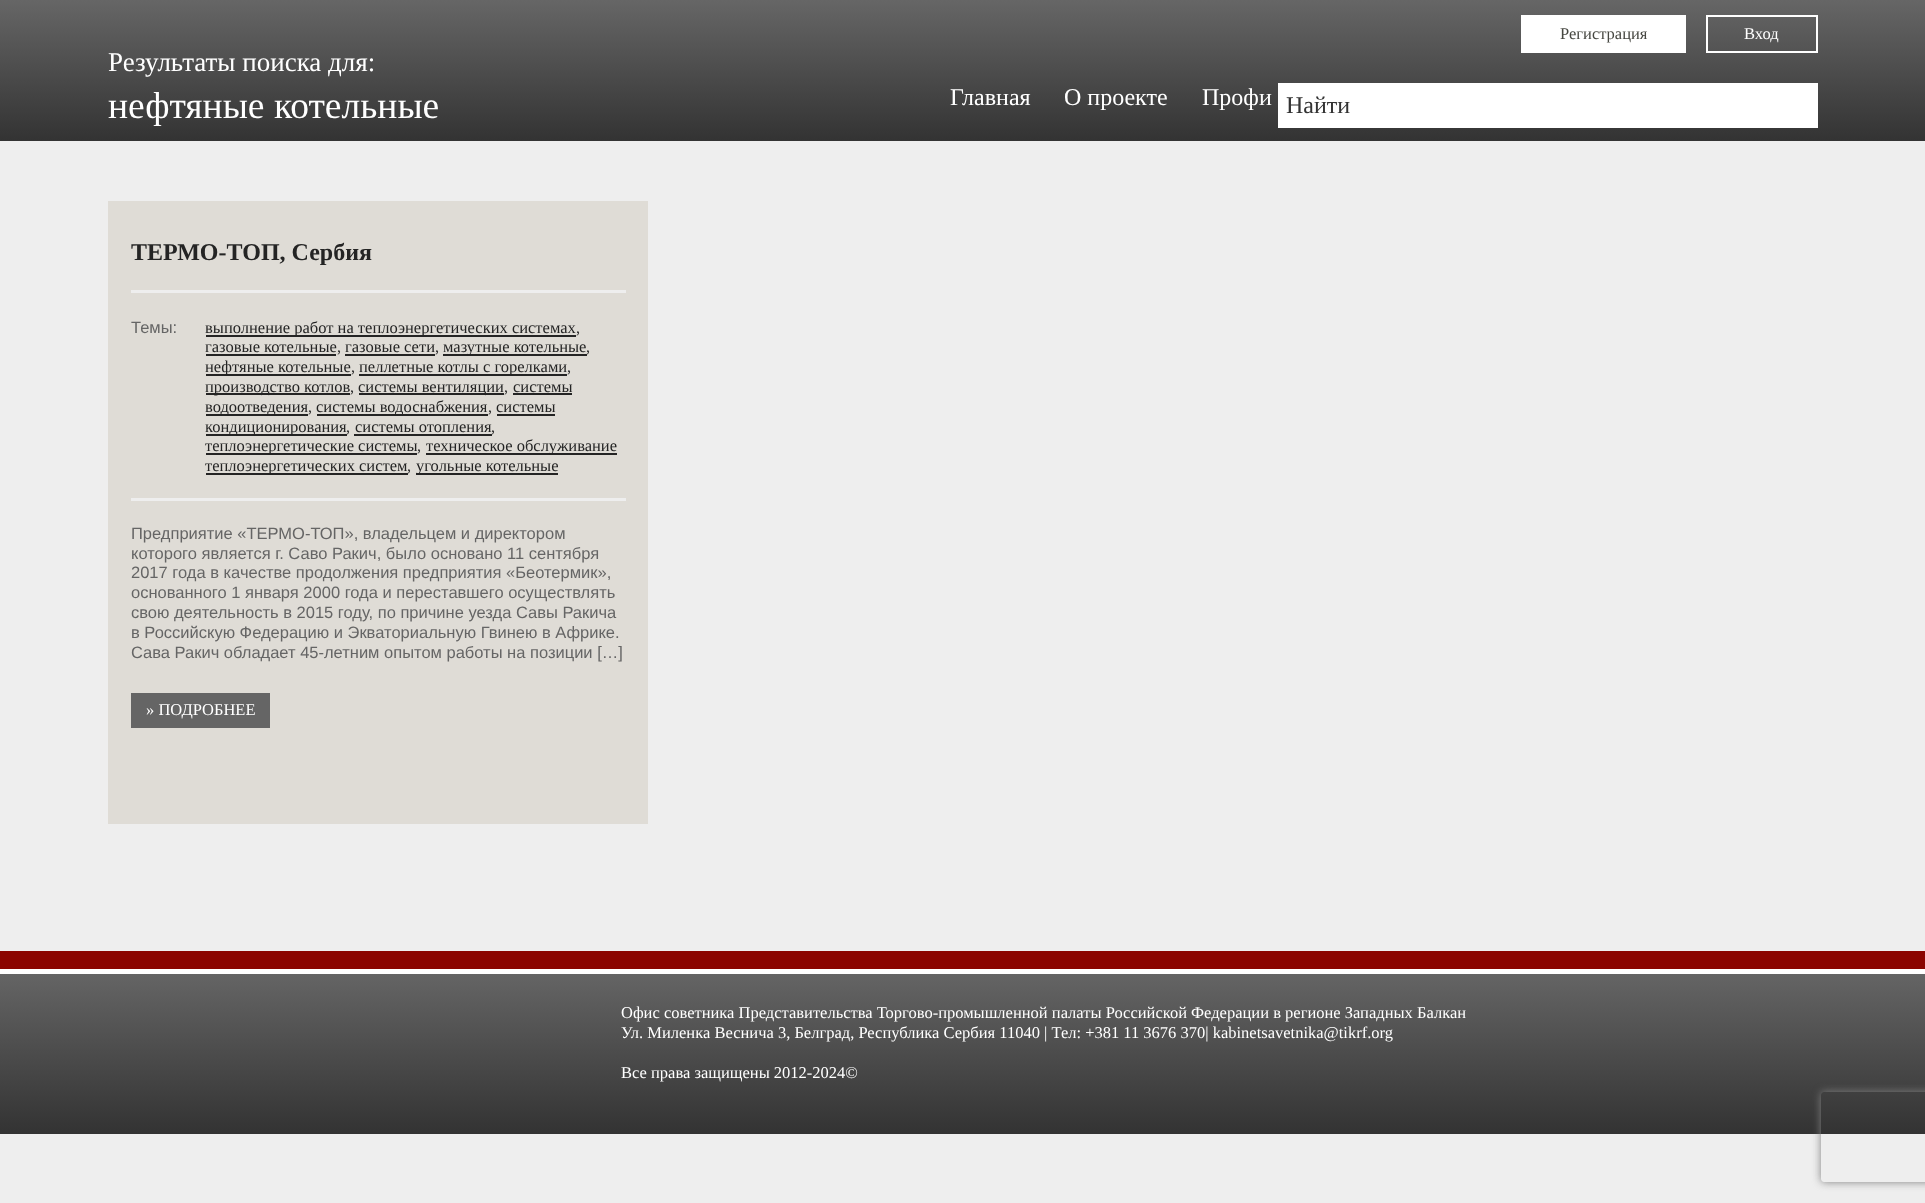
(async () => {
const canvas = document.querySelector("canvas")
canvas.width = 1925
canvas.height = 1203
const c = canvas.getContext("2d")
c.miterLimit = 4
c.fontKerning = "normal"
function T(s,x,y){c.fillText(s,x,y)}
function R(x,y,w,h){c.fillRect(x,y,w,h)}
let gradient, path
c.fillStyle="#eee"
R(0,0,1925,1203)
gradient = c.createLinearGradient(963,0,963,141)
gradient.addColorStop(0,"#666")
gradient.addColorStop(1,"#333")
c.fillStyle = gradient
R(0,0,1925,141)
c.font="27px Liberation Serif"
c.fillStyle="#fff"
T("Результаты поиска для:",108,71)
c.font="37.5px Liberation Serif"
T("нефтяные котельные",108,118)
R(1278,83,540,45)
c.font="24px Liberation Serif"
c.fillStyle="#333"
T("Найти",1286,113)
c.fillStyle="#fff"
R(1521,15,165,38)
c.font="16.5px Liberation Serif"
c.fillStyle="#464741"
T("Регистрация",1560,39)
c.strokeStyle="#fff"
c.lineWidth=2
c.strokeRect(1707,16,110,36)
c.fillStyle="#fff"
T("Вход",1744,39)
c.font="24px Liberation Serif"
T("Главная",950,105)
T("О проекте",1064,105)
T("Профи",1202,105)
c.fillStyle="#dfdcd6"
R(108,201,540,623)
c.font="bold 24px Liberation Serif"
c.fillStyle="#242424"
T("ТЕРМО-ТОП, Сербия",131,260)
c.fillStyle="#eee"
R(131,290,495,3)
c.font="16.5px Liberation Sans"
c.fillStyle="#656565"
T("Темы:",131,333)
c.fillStyle="#242424"
R(206,335,370,2)
c.font="16.5px Liberation Serif"
T("выполнение работ на теплоэнергетических системах",205,333)
c.fillStyle="#333"
T(",",576,333)
c.fillStyle="#242424"
T("газовые котельные",205,352)
R(206,354,130,2)
c.fillStyle="#333"
T(",",337,352)
c.fillStyle="#242424"
T("газовые сети",345,352)
R(345,354,90,2)
c.fillStyle="#333"
T(",",435,352)
c.fillStyle="#242424"
R(443,354,144,2)
T("мазутные котельные",443,352)
c.fillStyle="#333"
T(",",586,352)
c.fillStyle="#242424"
R(206,374,145,2)
T("нефтяные котельные",205,372)
c.fillStyle="#333"
T(",",351,372)
c.fillStyle="#242424"
R(359,374,208,2)
T("пеллетные котлы с горелками",359,372)
c.fillStyle="#333"
T(",",567,372)
c.fillStyle="#242424"
R(206,393,144,2)
T("производство котлов",205,392)
c.fillStyle="#333"
T(",",350,392)
c.fillStyle="#242424"
R(359,393,145,2)
T("системы вентиляции",358,392)
c.fillStyle="#333"
T(",",504,392)
c.fillStyle="#242424"
T("системы",513,392)
R(513,393,59,2)
R(206,414,102,2)
T("водоотведения",205,412)
c.fillStyle="#333"
T(",",308,412)
c.fillStyle="#242424"
R(317,414,171,2)
T("системы водоснабжения",316,412)
c.fillStyle="#333"
T(",",488,412)
c.fillStyle="#242424"
T("системы",496,412)
R(497,414,58,2)
R(206,434,141,2)
T("кондиционирования",205,432)
c.fillStyle="#333"
T(",",346,432)
c.fillStyle="#242424"
T("системы отопления",355,432)
R(354,434,138,2)
c.fillStyle="#333"
T(",",491,432)
c.fillStyle="#242424"
R(206,453,211,2)
T("теплоэнергетические системы",205,451)
c.fillStyle="#333"
T(",",417,451)
c.fillStyle="#242424"
R(426,453,191,2)
T("техническое обслуживание",426,451)
R(206,473,202,2)
T("теплоэнергетических систем",205,471)
c.fillStyle="#333"
T(",",407,471)
c.fillStyle="#242424"
R(416,473,142,2)
T("угольные котельные",416,471)
c.fillStyle="#eee"
R(131,498,495,3)
c.font="16.5px Liberation Sans"
c.fillStyle="#656565"
T("Предприятие «ТЕРМО-ТОП», владельцем и директором",131,539)
T("которого является г. Саво Ракич, было основано 11 сентября",131,559)
T("2017 года в качестве продолжения предприятия «Беотермик»,",131,578)
T("основанного 1 января 2000 года и переставшего осуществлять",131,598)
T("свою деятельность в 2015 году, по причине уезда Савы Ракича",131,618)
T("в Российскую Федерацию и Экваториальную Гвинею в Африке.",131,638)
T("Сава Ракич обладает 45-летним опытом работы на позиции […]",131,658)
R(131,693,139,35)
c.font="16.5px Liberation Serif"
c.fillStyle="#fff"
T("» ПОДРОБНЕЕ",146,715)
gradient = c.createLinearGradient(963,969,963,1134)
gradient.addColorStop(0,"#666")
gradient.addColorStop(1,"#333")
c.fillStyle = gradient
R(0,974,1925,160)
c.fillStyle="#8b0400"
R(0,951,1925,18)
c.fillStyle="#fff"
R(0,969,1925,5)
T("Офис советника Представительства Торгово-промышленной палаты Российской Федерации в регионе Западных Балкан",621,1018)
T("Ул. Миленка Веснича 3, Белград, Республика Сербия 11040 | Тел: +381 11 3676 370| kabinetsavetnika@tikrf.org",621,1038)
T("Все права защищены 2012-2024©",621,1078)
c.save()
path = new Path2D("M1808 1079h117v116h-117zm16 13h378c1.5 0 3 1.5 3 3v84c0 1.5-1.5 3-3 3h-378c-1.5 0-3-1.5-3-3v-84c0-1.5 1.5-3 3-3z")
c.clip(path,"evenodd")
c.fillStyle="#808080"
c.filter="blur(4px)"
c.beginPath()
c.roundRect(1821,1092,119,90,3)
c.fill()
c.filter="none"
c.restore()
})()
